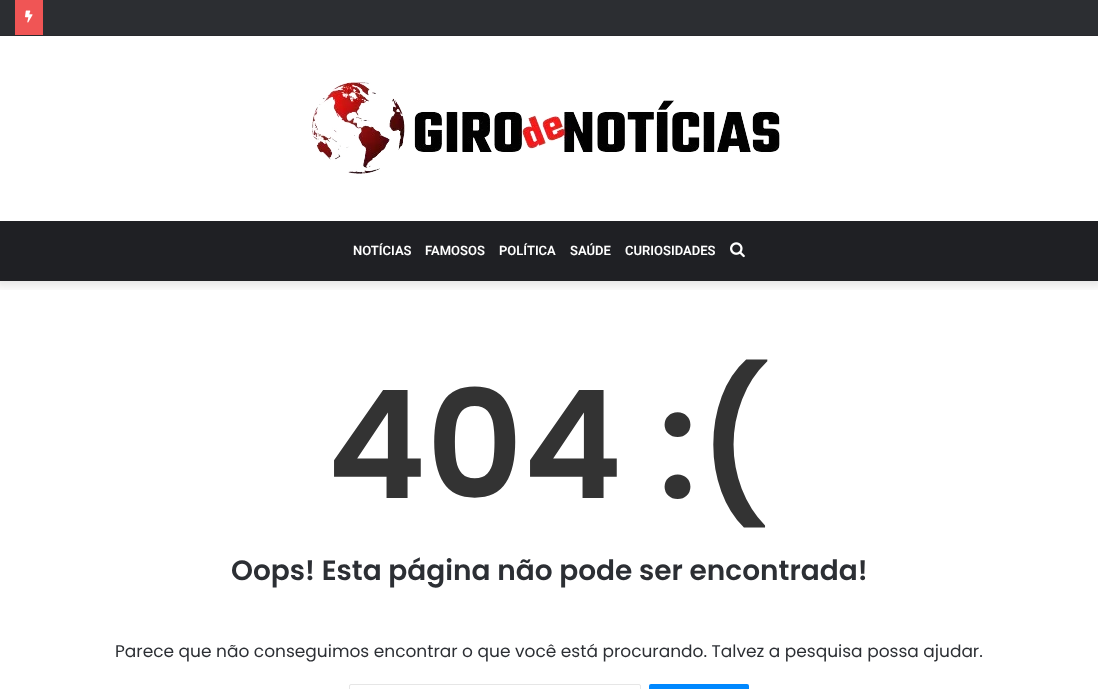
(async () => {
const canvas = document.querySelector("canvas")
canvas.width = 1098
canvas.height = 689
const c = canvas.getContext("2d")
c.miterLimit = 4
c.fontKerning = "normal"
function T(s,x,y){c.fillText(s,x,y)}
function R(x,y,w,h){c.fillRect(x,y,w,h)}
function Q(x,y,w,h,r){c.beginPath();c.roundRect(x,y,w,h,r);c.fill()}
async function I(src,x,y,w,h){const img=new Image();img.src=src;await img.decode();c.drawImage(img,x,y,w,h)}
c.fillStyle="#fff"
R(0,0,1098,689)
c.save()
c.beginPath()
c.rect(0,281,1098,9)
c.clip()
c.fillStyle="#0000001a"
c.filter="blur(5px)"
c.beginPath()
c.rect(-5,-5,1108,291)
c.fill()
c.filter="none"
c.restore()
c.fillStyle="#2c2e32"
R(0,0,1098,35)
c.fillStyle="#28292d"
R(0,35,1098,1)
c.fillStyle="#f05555"
R(15,0,28,35)
await I("1.png",25,10,8,13)
await I("2.png",312,82,468,92)
c.fillStyle="#1f2024"
R(0,221,1098,60)
c.font="600 13px Roboto"
c.fillStyle="#fff"
T("NOTÍCIAS",353,255)
T("FAMOSOS",425,255)
T("POLÍTICA",499,255)
T("SAÚDE",570,255)
T("CURIOSIDADES",625,255)
await I("3.png",730,242,15,16)
c.font="600 150px Poppins"
c.fillStyle="#333"
T("404 :(",327,498)
c.font="600 28px Poppins"
c.fillStyle="#2c2f34"
T("Oops! Esta página não pode ser encontrada!",231,580)
c.font="17px Poppins"
T("Parece que não conseguimos encontrar o que você está procurando. Talvez a pesquisa possa ajudar.",115,657)
c.beginPath()
c.roundRect(349.5,684.5,291,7,1.5)
c.strokeStyle="#e6e6e6"
c.stroke()
c.fillStyle="#08f"
Q(649,684,100,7,2)
})()
